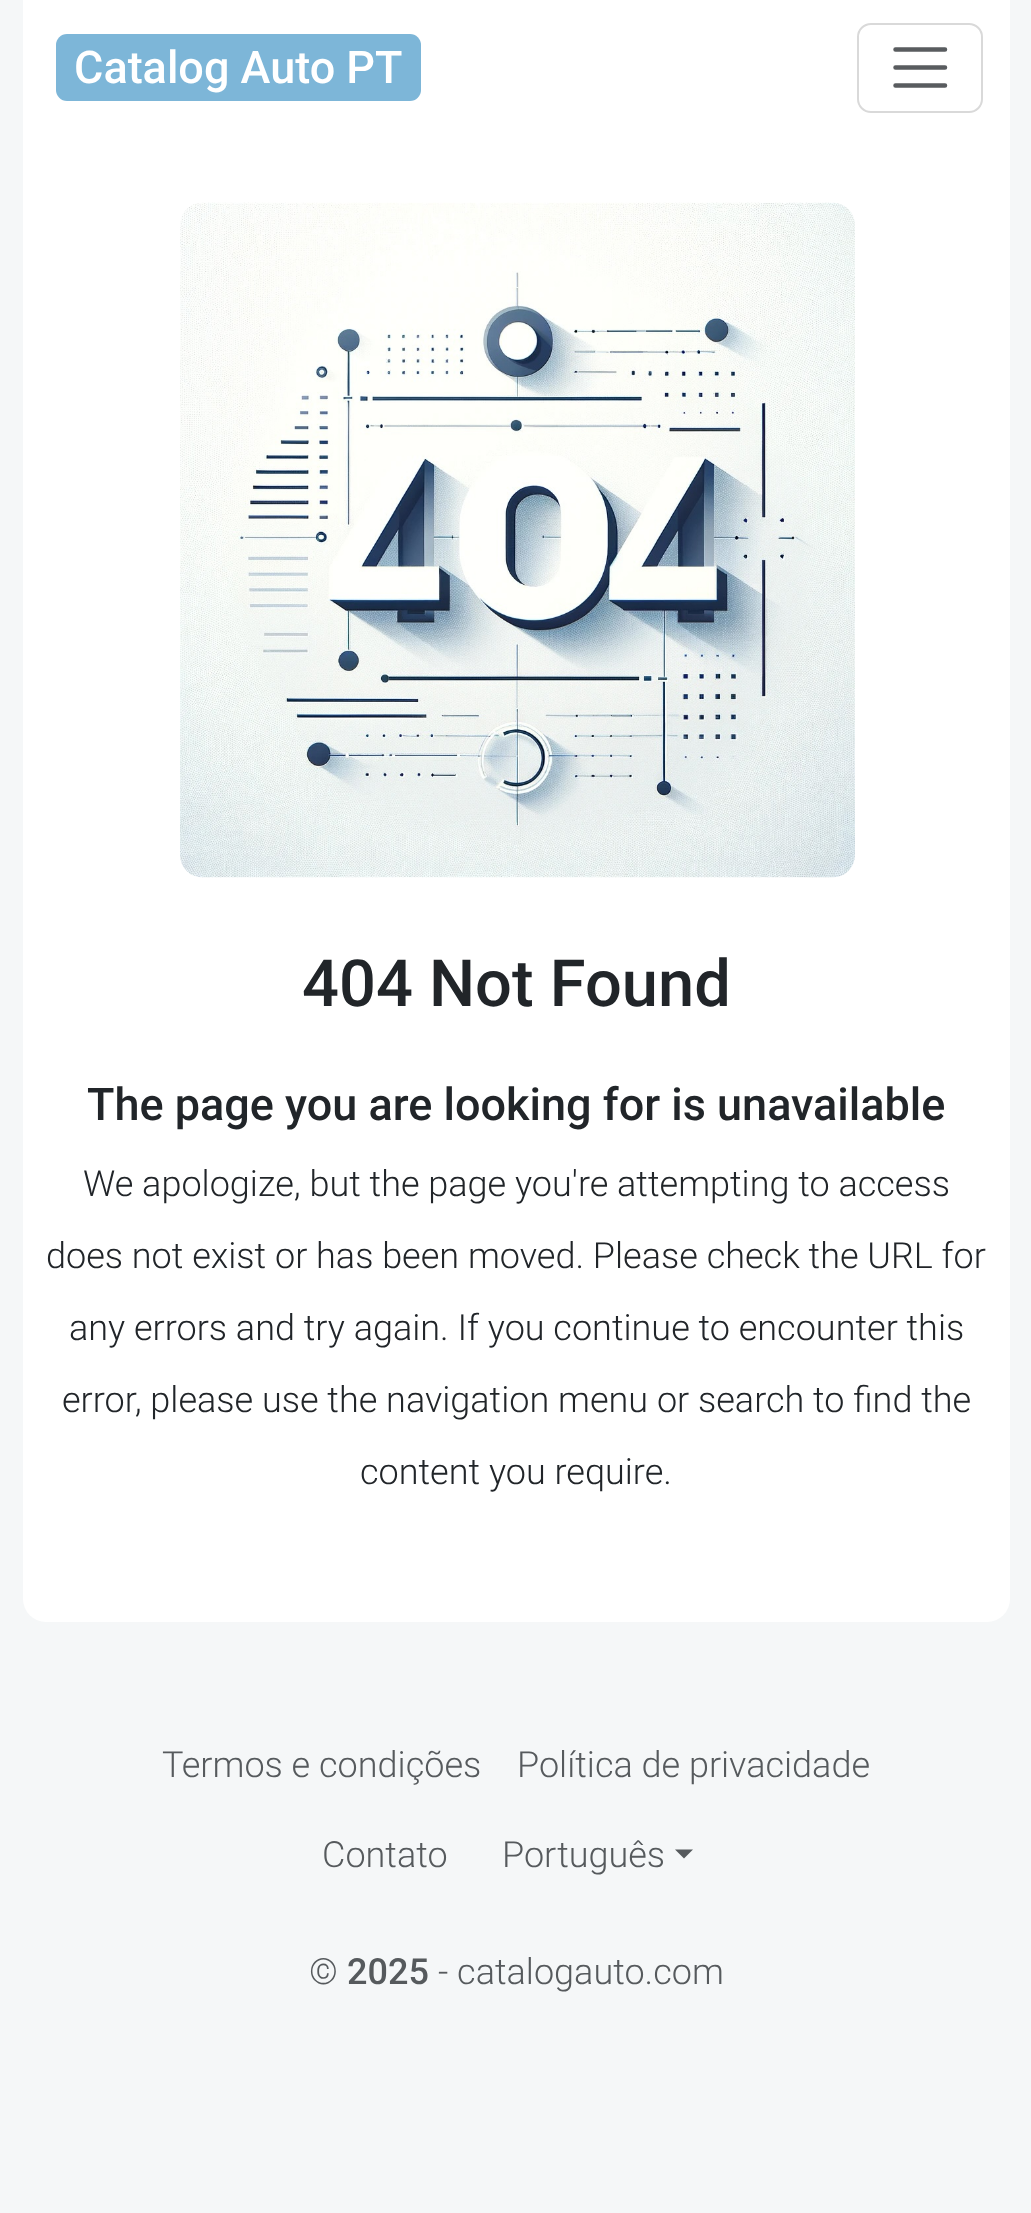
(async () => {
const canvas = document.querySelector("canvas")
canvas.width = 1031
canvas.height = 2213
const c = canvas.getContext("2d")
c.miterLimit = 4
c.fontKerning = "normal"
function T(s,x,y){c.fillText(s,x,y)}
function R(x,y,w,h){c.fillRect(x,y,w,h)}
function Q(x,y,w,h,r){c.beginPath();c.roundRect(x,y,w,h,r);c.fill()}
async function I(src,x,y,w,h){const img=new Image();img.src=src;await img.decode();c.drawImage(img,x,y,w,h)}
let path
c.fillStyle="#f5f7f8"
R(0,0,1031,2213)
c.fillStyle="#fff"
R(23,0,987,135)
c.fillStyle="#7db6d8"
Q(56,34,365,67,11)
c.font="500 45px Roboto"
c.fillStyle="#fff"
T("Catalog Auto PT",74,83)
c.beginPath()
c.roundRect(858,24,124,88,13)
c.strokeStyle="#d9d9d9"
c.lineWidth=2
c.stroke()
path = new Path2D("M895.5 49.5h49.5m-49.5 18h49.5m-49.5 18h49.5")
c.strokeStyle="#595c5f"
c.lineWidth=4.5
c.lineCap="round"
c.stroke(path)
c.beginPath()
c.roundRect(23,135,987,1487,[0,0,23,23])
c.fill()
await I("1.png",180,202,675,676)
c.font="500 65px Roboto"
c.fillStyle="#212529"
T("404 Not Found",302,1006)
c.font="500 45px Roboto"
T("The page you are looking for is unavailable",87,1120)
c.font="300 36px Roboto"
T("We apologize, but the page you're attempting to access",83,1196)
T("does not exist or has been moved. Please check the URL for",46,1268)
T("any errors and try again. If you continue to encounter this",69,1340)
T("error, please use the navigation menu or search to find the",62,1412)
T("content you require.",360,1484)
c.fillStyle="#565a5d"
T("Termos e condições",162,1777)
T("Política de privacidade",517,1777)
T("Contato",322,1867)
T("Português",502,1867)
path = new Path2D("M675 1849.5h18l-9 9z")
c.fill(path)
T("©",309,1984)
c.font="500 36px Roboto"
T("2025",347,1984)
c.font="300 36px Roboto"
T("- catalogauto.com",438,1984)
})()
